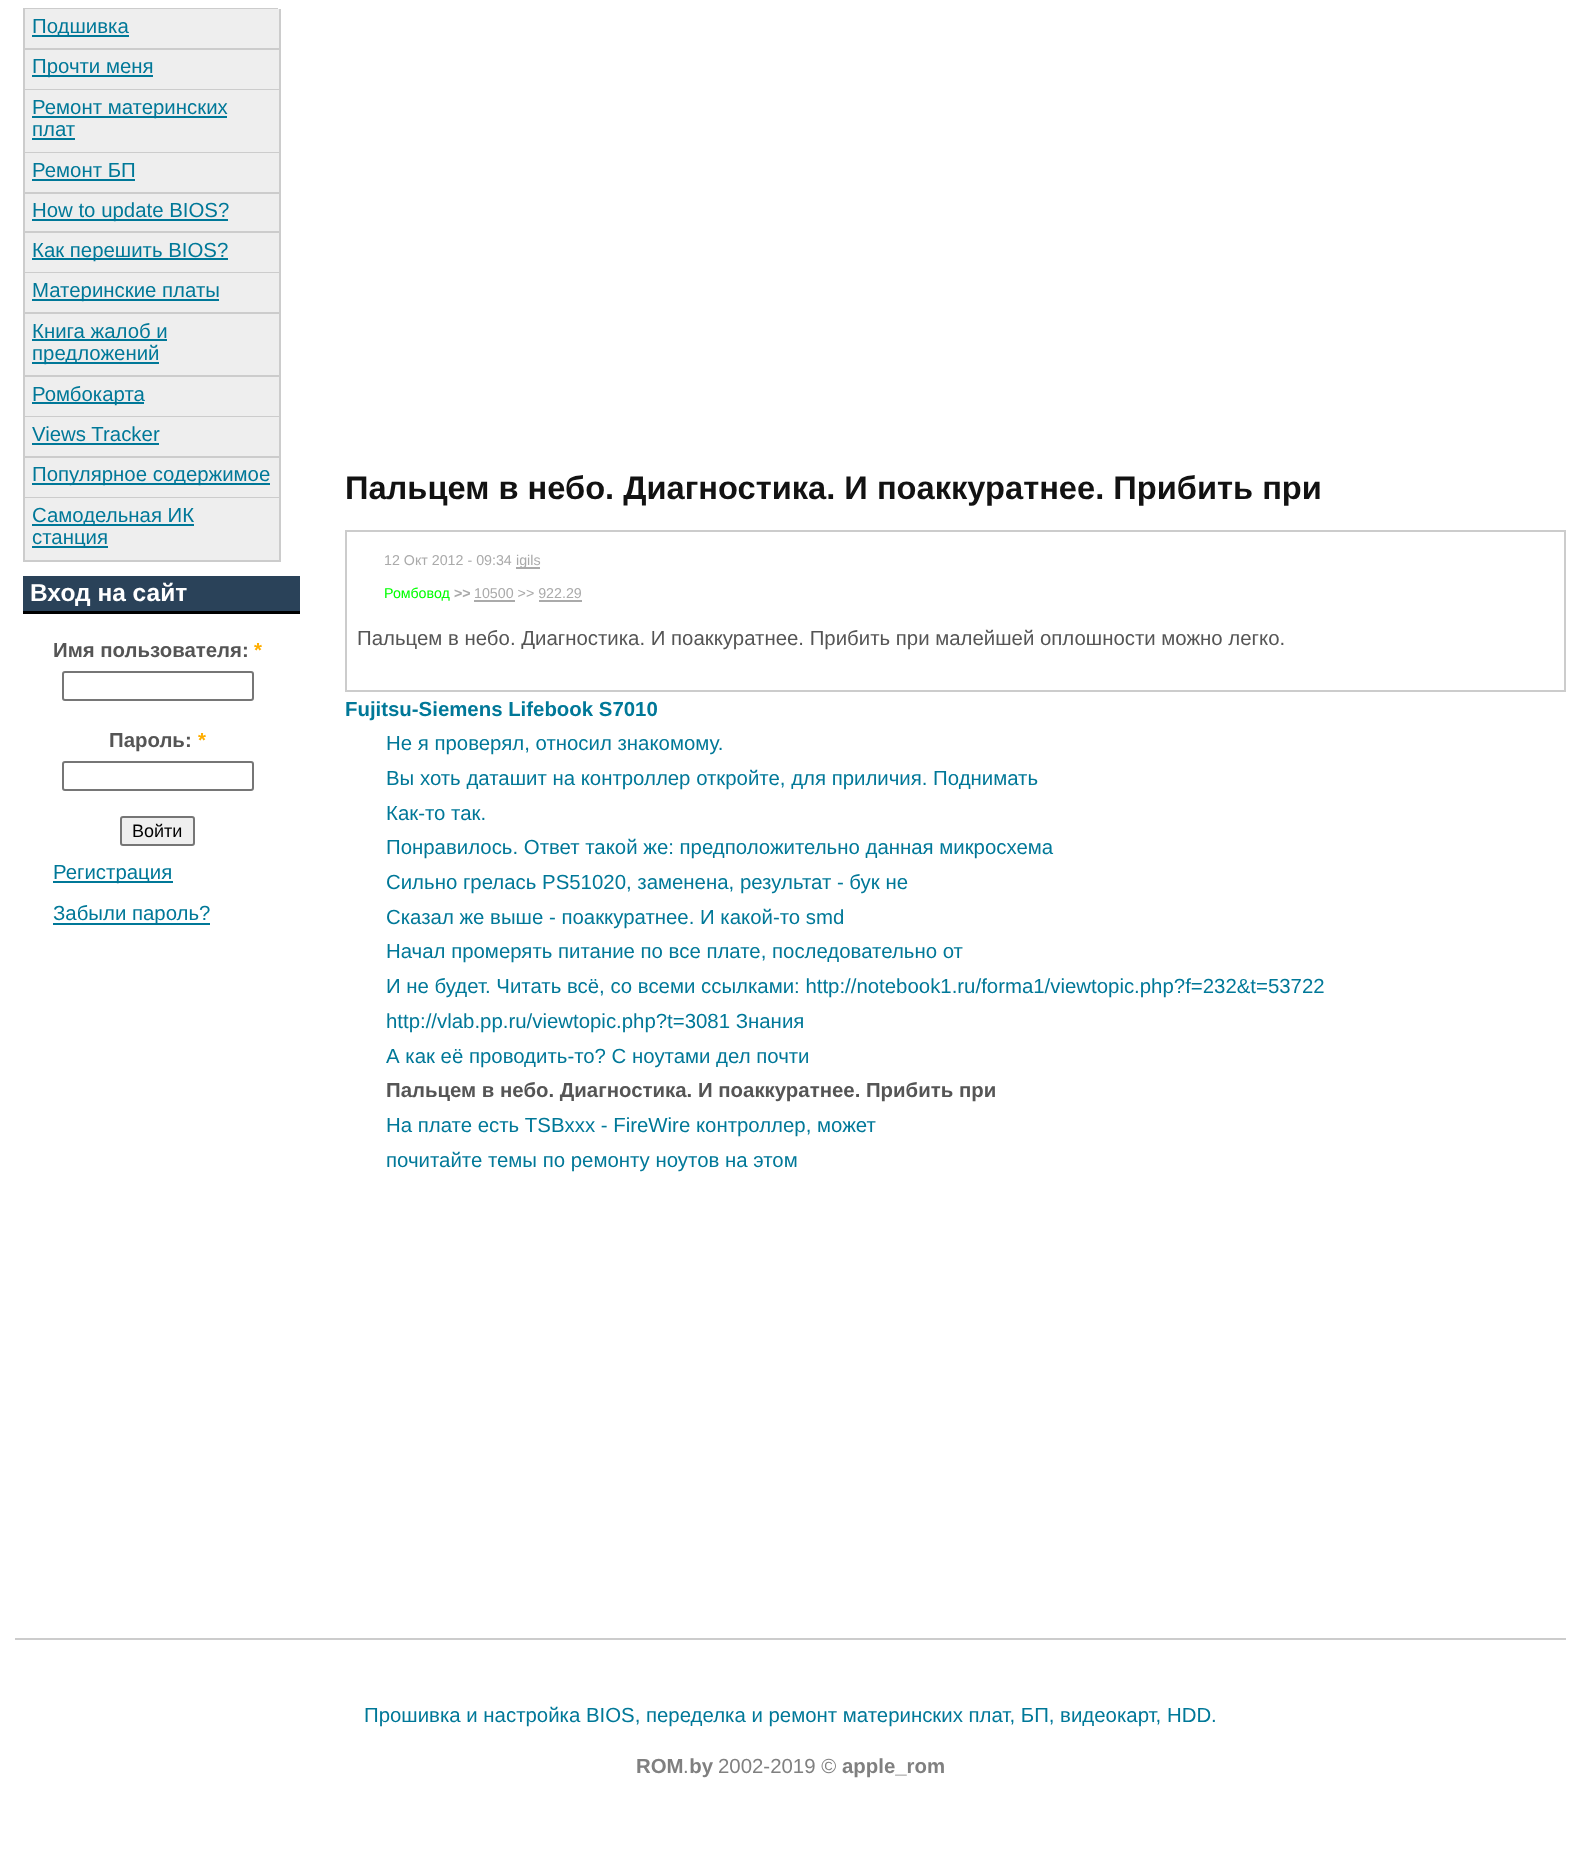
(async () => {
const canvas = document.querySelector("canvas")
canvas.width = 1580
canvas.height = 1868
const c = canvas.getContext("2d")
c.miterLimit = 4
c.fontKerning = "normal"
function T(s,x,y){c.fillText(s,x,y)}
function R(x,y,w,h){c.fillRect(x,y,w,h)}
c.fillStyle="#fff"
R(0,0,1580,1868)
c.fillStyle="#ccc"
R(23,8,255,1)
c.fillStyle="#eee"
R(25,9,254,39)
c.fillStyle="#ccc"
R(279,9,2,552)
R(23,48,258,2)
R(23,9,2,41)
c.fillStyle="#007898"
R(32,35,97,2)
c.font="20.4px Liberation Sans"
T("Подшивка",32,33)
c.fillStyle="#eee"
R(25,50,254,39)
c.fillStyle="#ccc"
R(23,89,258,1)
R(23,50,2,40)
c.fillStyle="#007898"
R(32,75,121,2)
T("Прочти меня",32,73)
c.fillStyle="#eee"
R(25,90,254,62)
c.fillStyle="#ccc"
R(23,152,258,1)
R(23,90,2,63)
c.fillStyle="#007898"
R(32,116,195,2)
T("Ремонт материнских",32,114)
T("плат",32,136)
R(32,138,43,2)
c.fillStyle="#eee"
R(25,153,254,39)
c.fillStyle="#ccc"
R(23,192,258,2)
R(23,153,2,41)
c.fillStyle="#007898"
T("Ремонт БП",32,177)
R(32,179,103,2)
c.fillStyle="#eee"
R(25,194,254,37)
c.fillStyle="#ccc"
R(23,231,258,2)
R(23,194,2,39)
c.fillStyle="#007898"
R(32,219,196,2)
T("How to update BIOS?",32,217)
c.fillStyle="#eee"
R(25,233,254,39)
c.fillStyle="#ccc"
R(23,272,258,1)
R(23,233,2,40)
c.fillStyle="#007898"
R(32,258,196,2)
T("Как перешить BIOS?",32,257)
c.fillStyle="#eee"
R(25,273,254,39)
c.fillStyle="#ccc"
R(23,312,258,2)
R(23,273,2,41)
c.fillStyle="#007898"
R(32,299,187,2)
T("Материнские платы",32,297)
c.fillStyle="#eee"
R(25,314,254,61)
c.fillStyle="#ccc"
R(23,375,258,2)
R(23,314,2,63)
c.fillStyle="#007898"
T("Книга жалоб и",32,338)
R(32,339,135,2)
R(32,362,127,2)
T("предложений",32,360)
c.fillStyle="#eee"
R(25,377,254,39)
c.fillStyle="#ccc"
R(23,416,258,1)
R(23,377,2,40)
c.fillStyle="#007898"
R(32,402,112,2)
T("Ромбокарта",32,401)
c.fillStyle="#eee"
R(25,417,254,39)
c.fillStyle="#ccc"
R(23,456,258,2)
R(23,417,2,41)
c.fillStyle="#007898"
T("Views Tracker",32,441)
R(32,443,127,2)
c.fillStyle="#eee"
R(25,458,254,39)
c.fillStyle="#ccc"
R(23,497,258,1)
R(23,458,2,40)
c.fillStyle="#007898"
R(32,483,238,2)
T("Популярное содержимое",32,481)
c.fillStyle="#eee"
R(25,498,254,62)
c.fillStyle="#ccc"
R(23,560,258,2)
R(23,498,2,63)
c.fillStyle="#007898"
R(32,524,162,2)
T("Самодельная ИК",32,522)
R(32,546,76,2)
T("станция",32,544)
c.fillStyle="#2a4259"
R(23,576,277,35)
c.fillStyle="#000"
R(23,611,277,3)
c.font="bold 24.5px Liberation Sans"
c.fillStyle="#fff"
T("Вход на сайт",30,601)
c.font="bold 20.4px Liberation Sans"
c.fillStyle="#555"
T("Имя пользователя:",53,657)
c.fillStyle="#ffae00"
T("*",254,657)
c.beginPath()
c.roundRect(63,672,190,28,2)
c.strokeStyle="#767676"
c.lineWidth=2
c.stroke()
c.fillStyle="#555"
T("Пароль:",109,747)
c.fillStyle="#ffae00"
T("*",198,747)
c.beginPath()
c.roundRect(63,762,190,28,2)
c.stroke()
c.fillStyle="#efefef"
c.beginPath()
c.roundRect(121,817,73,28,2)
c.fill()
c.stroke()
c.font="18px Liberation Sans"
c.fillStyle="#000"
T("Войти",132,837)
c.fillStyle="#007898"
R(53,881,120,2)
c.font="20.4px Liberation Sans"
T("Регистрация",53,879)
R(53,923,157,2)
T("Забыли пароль?",53,920)
c.font="bold 32.65px Liberation Sans"
c.fillStyle="#121212"
T("Пальцем в небо. Диагностика. И поаккуратнее. Прибить при",345,499)
c.strokeStyle="#ccc"
c.strokeRect(346,531,1219,160)
c.font="14.25px Liberation Sans"
c.fillStyle="#aaa"
T("12 Окт 2012 - 09:34",384,565)
R(516,567,24,2)
T("igils",516,565)
c.fillStyle="#0f0"
T("Ромбовод",384,598)
c.font="bold 14.25px Liberation Sans"
c.fillStyle="#aaa"
T(">>",454,598)
c.font="14.25px Liberation Sans"
T("10500 >> 922.29",474,598)
R(474,600,41,2)
R(539,600,43,2)
c.font="20.4px Liberation Sans"
c.fillStyle="#555"
T("Пальцем в небо. Диагностика. И поаккуратнее. Прибить при малейшей оплошности можно легко.",357,645)
c.font="bold 20.4px Liberation Sans"
c.fillStyle="#007898"
T("Fujitsu-Siemens Lifebook S7010",345,716)
c.font="20.4px Liberation Sans"
T("Не я проверял, относил знакомому.",386,750)
T("Вы хоть даташит на контроллер откройте, для приличия. Поднимать",386,785)
T("Как-то так.",386,820)
T("Понравилось. Ответ такой же: предположительно данная микросхема",386,854)
T("Сильно грелась PS51020, заменена, результат - бук не",386,889)
T("Сказал же выше - поаккуратнее. И какой-то smd",386,924)
T("Начал промерять питание по все плате, последовательно от",386,958)
T("И не будет. Читать всё, со всеми ссылками: http://notebook1.ru/forma1/viewtopic.php?f=232&t=53722",386,993)
T("http://vlab.pp.ru/viewtopic.php?t=3081 Знания",386,1028)
T("А как её проводить-то? С ноутами дел почти",386,1063)
c.font="bold 20.4px Liberation Sans"
c.fillStyle="#555"
T("Пальцем в небо. Диагностика. И поаккуратнее. Прибить при",386,1097)
c.font="20.4px Liberation Sans"
c.fillStyle="#007898"
T("На плате есть TSBxxx - FireWire контроллер, может",386,1132)
T("почитайте темы по ремонту ноутов на этом",386,1167)
c.fillStyle="#ccc"
R(15,1638,1551,2)
c.fillStyle="#007898"
T("Прошивка и настройка BIOS, переделка и ремонт материнских плат, БП, видеокарт, HDD.",364,1722)
c.font="bold 20.4px Liberation Sans"
c.fillStyle="#808080"
T("ROM by",636,1773)
c.font="20.4px Liberation Sans"
T("2002-2019 ©",718,1773)
c.font="bold 20.4px Liberation Sans"
T("apple_rom",842,1773)
c.font="20.4px Liberation Sans"
T(".",683,1773)
})()
